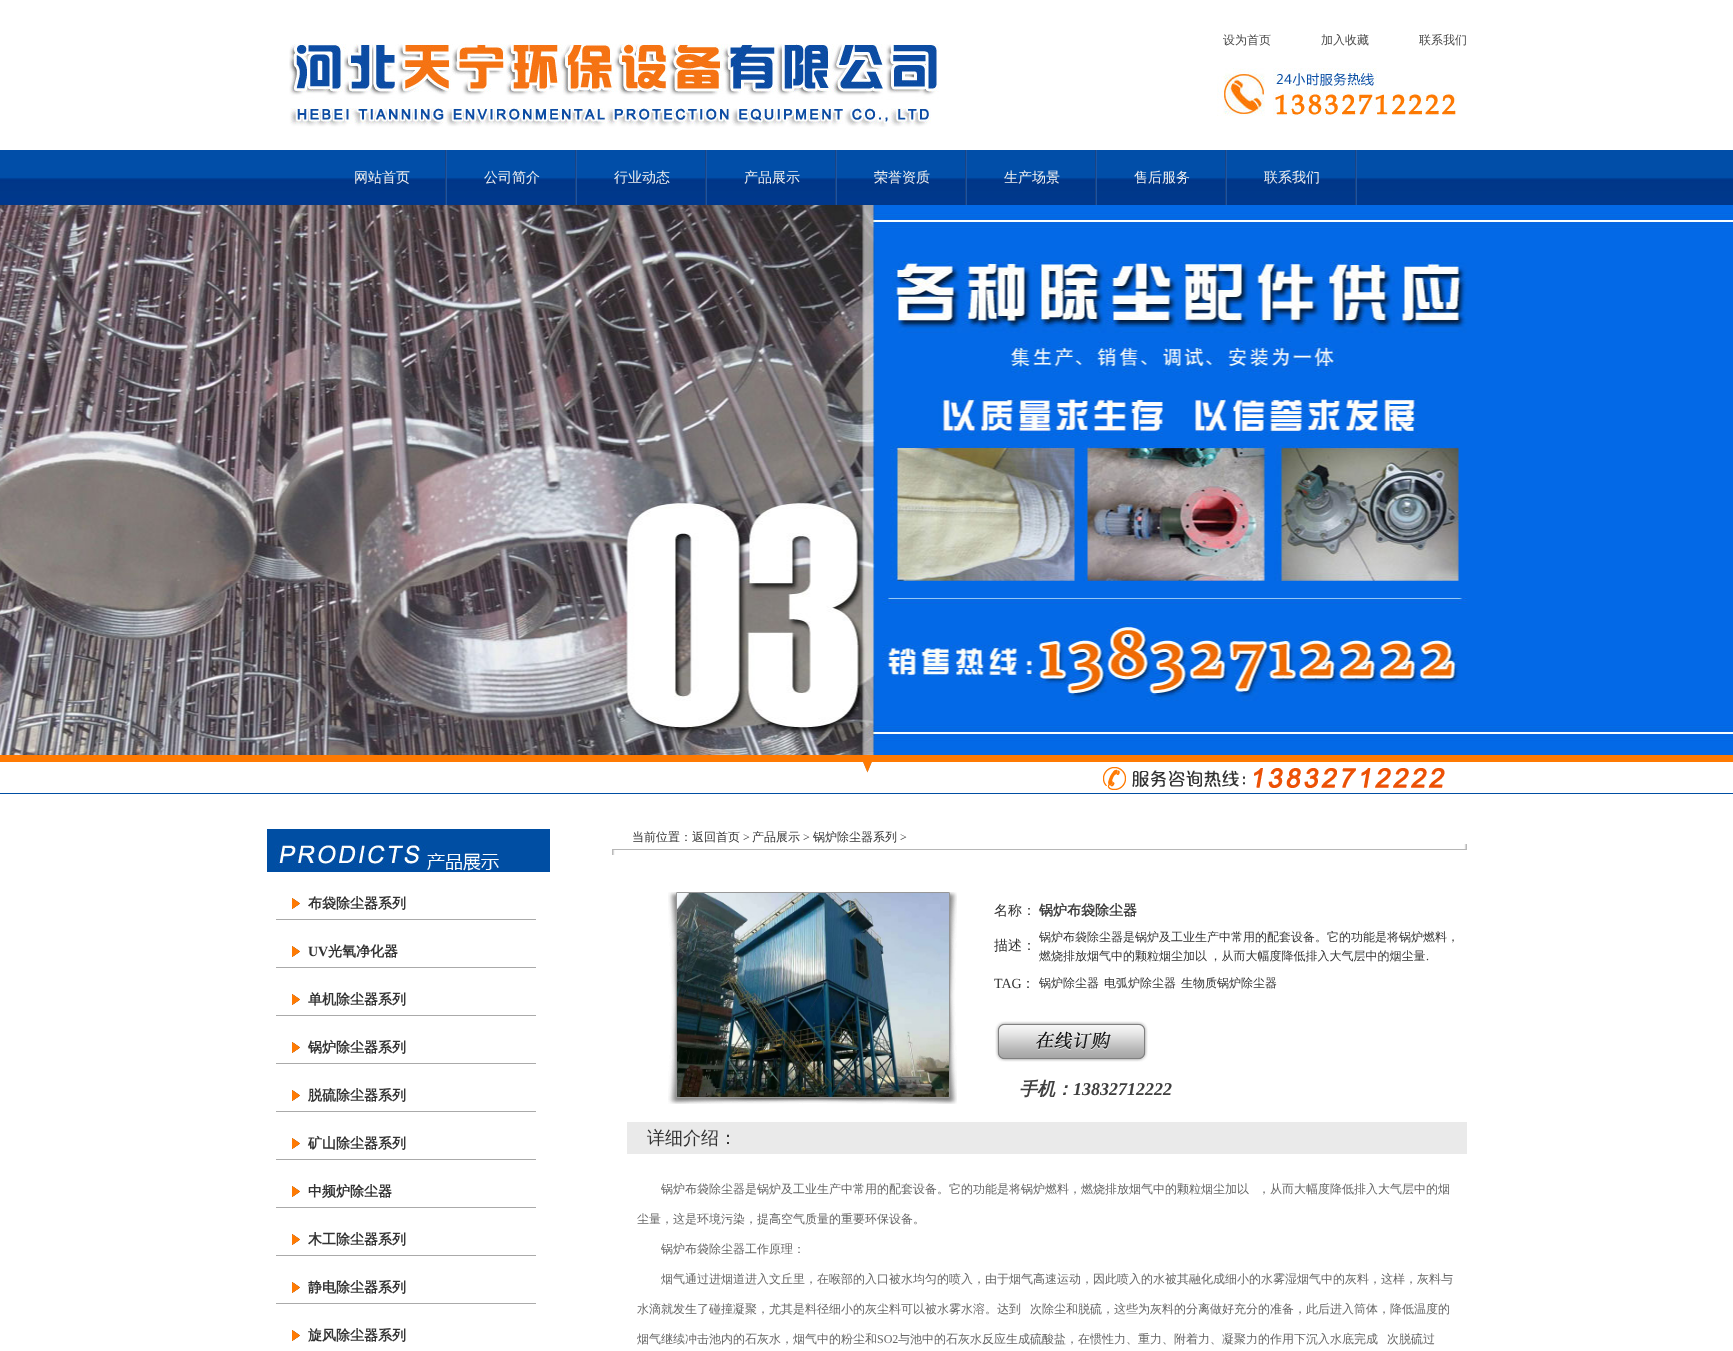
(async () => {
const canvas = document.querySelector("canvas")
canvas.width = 1733
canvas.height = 1351
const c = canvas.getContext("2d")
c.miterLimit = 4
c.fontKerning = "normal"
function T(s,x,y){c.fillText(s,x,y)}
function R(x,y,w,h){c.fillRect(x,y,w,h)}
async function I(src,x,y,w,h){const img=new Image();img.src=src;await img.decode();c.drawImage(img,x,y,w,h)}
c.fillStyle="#fff"
R(0,0,1733,1351)
c.font="500 12px WenQuanYi Zen Hei"
c.fillStyle="#484848"
T("设为首页",1223,44)
T("加入收藏",1321,44)
T("联系我们",1419,44)
await I("1.png",289,44,650,83)
await I("2.png",1217,68,240,48)
await I("3.png",0,150,1733,55)
await I("4.png",445,150,2,55)
c.font="500 14px WenQuanYi Zen Hei"
c.fillStyle="#eee"
T("网站首页",354,182)
await I("4.png",575,150,2,55)
T("公司简介",484,182)
await I("4.png",705,150,2,55)
T("行业动态",614,182)
await I("4.png",835,150,2,55)
T("产品展示",744,182)
await I("4.png",965,150,2,55)
T("荣誉资质",874,182)
await I("4.png",1095,150,2,55)
T("生产场景",1004,182)
await I("4.png",1225,150,2,55)
T("售后服务",1134,182)
await I("4.png",1355,150,2,55)
T("联系我们",1264,182)
await I("5.png",0,205,1733,550)
await I("6.png",0,755,1733,39)
await I("7.png",863,762,582,28)
await I("8.png",267,829,283,43)
await I("9.png",276,898,260,22)
c.font="bold 14px WenQuanYi Zen Hei"
c.fillStyle="#333"
T("布袋除尘器系列",308,908)
await I("9.png",276,946,260,22)
c.font="bold 14px Liberation Serif"
T("UV",308,956)
c.font="bold 14px WenQuanYi Zen Hei"
T("光氧净化器",328,956)
await I("9.png",276,994,260,22)
T("单机除尘器系列",308,1004)
await I("9.png",276,1042,260,22)
T("锅炉除尘器系列",308,1052)
await I("9.png",276,1090,260,22)
T("脱硫除尘器系列",308,1100)
await I("9.png",276,1138,260,22)
T("矿山除尘器系列",308,1148)
await I("9.png",276,1186,260,22)
T("中频炉除尘器",308,1196)
await I("9.png",276,1234,260,22)
T("木工除尘器系列",308,1244)
await I("9.png",276,1282,260,22)
T("静电除尘器系列",308,1292)
await I("10.png",292,1330,8,11)
T("旋风除尘器系列",308,1340)
await I("11.png",612,844,855,11)
c.font="500 12px WenQuanYi Zen Hei"
T("当前位置：返回首页",632,841)
c.font="12px Liberation Serif"
T(">",743,841)
c.font="500 12px WenQuanYi Zen Hei"
T("产品展示",752,841)
c.font="12px Liberation Serif"
T(">",803,841)
c.font="500 12px WenQuanYi Zen Hei"
T("锅炉除尘器系列",813,841)
c.font="12px Liberation Serif"
T(">",900,841)
await I("12.png",668,892,289,212)
await I("13.png",677,893,272,204)
c.font="500 14px WenQuanYi Zen Hei"
T("名称：",994,915)
c.font="bold 14px WenQuanYi Zen Hei"
c.fillStyle="#404040"
T("锅炉布袋除尘器",1039,915)
c.font="500 14px WenQuanYi Zen Hei"
c.fillStyle="#333"
T("描述：",994,950)
c.font="500 12px WenQuanYi Zen Hei"
T("锅炉布袋除尘器是锅炉及工业生产中常用的配套设备。它的功能是将锅炉燃料，",1039,941)
c.wordSpacing="-1px"
T("燃烧排放烟气中的颗粒烟尘加以 ，从而大幅度降低排入大气层中的烟尘量",1039,960)
c.wordSpacing="0px"
c.font="12px Liberation Serif"
T(".",1426,960)
c.font="14px Liberation Serif"
T("TAG",994,988)
c.font="500 14px WenQuanYi Zen Hei"
T("：",1021,988)
c.font="500 12px WenQuanYi Zen Hei"
T("锅炉除尘器",1039,987)
T("电弧炉除尘器",1104,987)
T("生物质锅炉除尘器",1181,987)
await I("14.png",995,1021,153,41)
c.font="italic bold 18px WenQuanYi Zen Hei"
c.fillStyle="#404040"
T("手机：",1019,1095)
c.font="italic bold 18px Liberation Serif"
T("13832712222",1073,1095)
c.fillStyle="#eaeaea"
R(627,1122,840,32)
c.font="500 18px WenQuanYi Zen Hei"
c.fillStyle="#333"
T("详细介绍：",647,1144)
c.font="500 12px WenQuanYi Zen Hei"
c.fillStyle="#666"
T("锅炉布袋除尘器是锅炉及工业生产中常用的配套设备。它的功能是将锅炉燃料，燃烧排放烟气中的颗粒烟尘加以",661,1193)
T("，从而大幅度降低排入大气层中的烟",1258,1193)
T("尘量，这是环境污染，提高空气质量的重要环保设备。",637,1223)
T("锅炉布袋除尘器工作原理：",661,1253)
T("烟气通过进烟道进入文丘里，在喉部的入口被水均匀的喷入，由于烟气高速运动，因此喷入的水被其融化成细小的水雾湿烟气中的灰料，这样，灰料与",661,1283)
T("水滴就发生了碰撞凝聚，尤其是料径细小的灰尘料可以被水雾水溶。达到",637,1313)
T("次除尘和脱硫，这些为灰料的分离做好充分的准备，此后进入筒体，降低温度的",1030,1313)
T("烟气继续冲击池内的石灰水，烟气中的粉尘和",637,1343)
c.font="12px Liberation Serif"
T("SO2",877,1343)
c.font="500 12px WenQuanYi Zen Hei"
T("与池中的石灰水反应生成硫酸盐，在惯性力、重力、附着力、凝聚力的作用下沉入水底完成",898,1343)
T("次脱硫过",1387,1343)
})()
